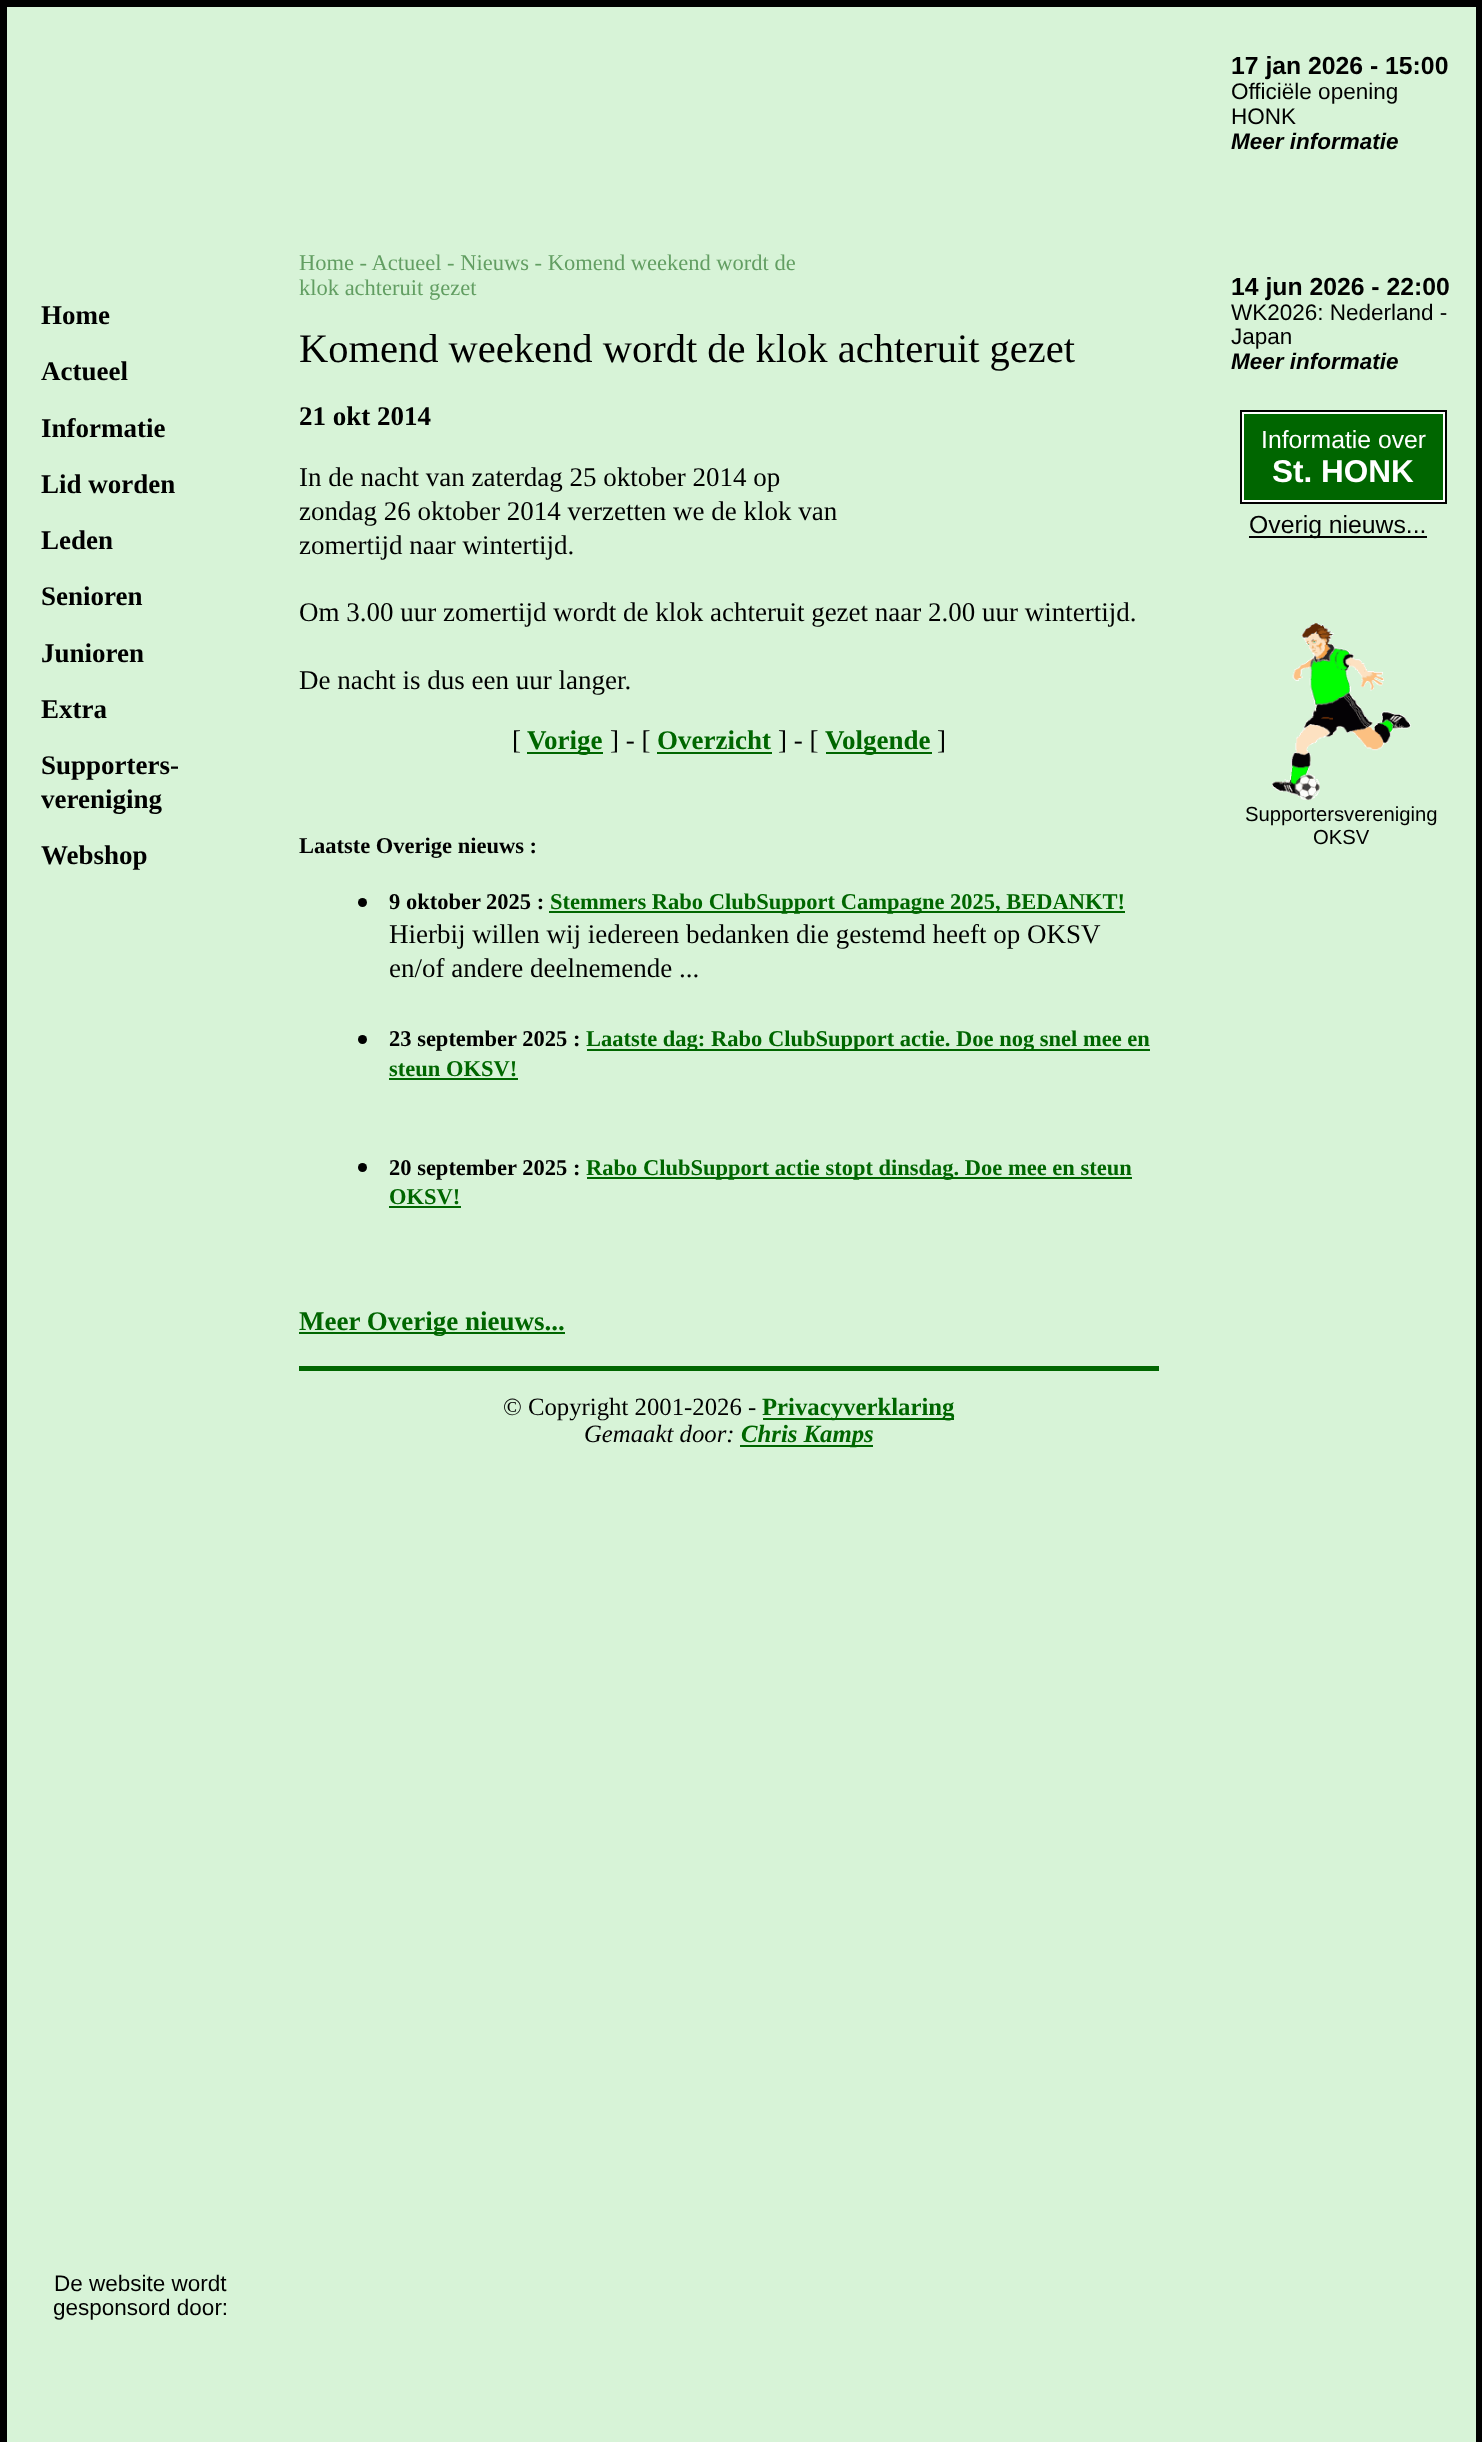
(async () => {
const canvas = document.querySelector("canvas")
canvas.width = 1482
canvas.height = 2442
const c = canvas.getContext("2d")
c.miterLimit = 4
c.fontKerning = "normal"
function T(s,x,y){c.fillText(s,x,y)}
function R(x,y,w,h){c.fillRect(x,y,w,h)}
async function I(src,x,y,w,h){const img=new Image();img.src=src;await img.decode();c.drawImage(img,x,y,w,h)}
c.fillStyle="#000"
R(0,0,1482,2442)
c.fillStyle="#d7f3d7"
R(7,7,292,2435)
c.font="bold 27px Liberation Serif"
c.fillStyle="#000"
T("Home",41,324)
T("Actueel",41,380)
T("Informatie",41,437)
T("Lid worden",41,493)
T("Leden",41,549)
T("Senioren",41,605)
T("Junioren",41,662)
T("Extra",41,718)
T("Supporters-",41,774)
T("vereniging",41,808)
T("Webshop",41,864)
c.font="22.5px Liberation Sans"
T("De website wordt",54,2291)
T("gesponsord door:",53,2315)
c.fillStyle="#d7f3d7"
R(299,7,1177,2435)
c.font="22.5px Liberation Serif"
c.fillStyle="#629e62"
T("Home - Actueel - Nieuws - Komend weekend wordt de",299,270)
T("klok achteruit gezet",299,295)
c.font="40.5px Liberation Serif"
c.fillStyle="#000"
T("Komend weekend wordt de klok achteruit gezet",299,362)
c.font="bold 27px Liberation Serif"
T("21 okt 2014",299,425)
c.font="27px Liberation Serif"
T("In de nacht van zaterdag 25 oktober 2014 op",299,486)
T("zondag 26 oktober 2014 verzetten we de klok van",299,520)
T("zomertijd naar wintertijd.",299,554)
T("Om 3.00 uur zomertijd wordt de klok achteruit gezet naar 2.00 uur wintertijd.",299,621)
T("De nacht is dus een uur langer.",299,689)
T("[",512,749)
c.fillStyle="#060"
R(527,752,76,2)
c.font="bold 27px Liberation Serif"
T("Vorige",527,749)
c.font="27px Liberation Serif"
c.fillStyle="#000"
T("] - [",610,749)
c.font="bold 27px Liberation Serif"
c.fillStyle="#060"
T("Overzicht",657,749)
R(657,752,115,2)
c.font="27px Liberation Serif"
c.fillStyle="#000"
T("] - [",778,749)
c.fillStyle="#060"
R(826,752,106,2)
c.font="bold 27px Liberation Serif"
T("Volgende",825,749)
c.font="27px Liberation Serif"
c.fillStyle="#000"
T("]",937,749)
c.font="bold 22.5px Liberation Serif"
T("Laatste Overige nieuws :",299,853)
c.beginPath()
c.arc(362.5,902.5,4.5,0,7)
c.fill()
T("9 oktober 2025 :",389,909)
c.fillStyle="#060"
R(549,911,576,2)
T("Stemmers Rabo ClubSupport Campagne 2025, BEDANKT!",550,909)
c.font="27px Liberation Serif"
c.fillStyle="#000"
T("Hierbij willen wij iedereen bedanken die gestemd heeft op OKSV",389,943)
T("en/of andere deelnemende ...",389,977)
c.beginPath()
c.arc(362.5,1039.5,4.5,0,7)
c.fill()
c.font="bold 22.5px Liberation Serif"
T("23 september 2025 :",389,1046)
c.fillStyle="#060"
R(587,1049,563,2)
T("Laatste dag: Rabo ClubSupport actie. Doe nog snel mee en",586,1046)
T("steun OKSV!",389,1076)
R(389,1078,129,2)
c.fillStyle="#000"
c.beginPath()
c.arc(362.5,1167.5,4.5,0,7)
c.fill()
T("20 september 2025 :",389,1175)
c.fillStyle="#060"
R(587,1177,545,2)
T("Rabo ClubSupport actie stopt dinsdag. Doe mee en steun",586,1175)
T("OKSV!",389,1204)
R(389,1206,72,2)
R(299,1332,266,2)
c.font="bold 27px Liberation Serif"
T("Meer Overige nieuws...",299,1330)
R(299,1366,860,5)
c.font="24.75px Liberation Serif"
c.fillStyle="#000"
T("© Copyright 2001-2026 -",503,1415)
c.fillStyle="#060"
R(763,1418,191,2)
c.font="bold 24.75px Liberation Serif"
T("Privacyverklaring",762,1415)
c.font="italic 24.75px Liberation Serif"
c.fillStyle="#000"
T("Gemaakt door:",584,1442)
c.fillStyle="#060"
R(740,1445,133,2)
c.font="italic bold 24.75px Liberation Serif"
T("Chris Kamps",741,1442)
c.font="bold 24.75px Liberation Sans"
c.fillStyle="#000"
T("17 jan 2026 - 15:00",1231,74)
c.font="22.5px Liberation Sans"
T("Officiële opening",1231,99)
T("HONK",1231,124)
c.font="italic bold 22.5px Liberation Sans"
T("Meer informatie",1231,149)
c.font="bold 24.75px Liberation Sans"
T("14 jun 2026 - 22:00",1231,295)
c.font="22.5px Liberation Sans"
T("WK2026: Nederland -",1231,320)
T("Japan",1231,344)
c.font="italic bold 22.5px Liberation Sans"
T("Meer informatie",1231,369)
c.fillStyle="#060"
R(1244,414,199,86)
c.strokeStyle="#000"
c.lineWidth=2
c.strokeRect(1241,411,205,92)
c.strokeStyle="#fff"
c.strokeRect(1243,413,201,88)
c.font="24.75px Liberation Sans"
c.fillStyle="#fff"
T("Informatie over",1261,448)
c.font="bold 31.5px Liberation Sans"
T("St. HONK",1272,482)
c.fillStyle="#000"
R(1249,536,178,2)
c.font="24.75px Liberation Sans"
T("Overig nieuws...",1249,533)
await I("1.png",1272,623,139,177)
c.font="20.25px Liberation Sans"
T("Supportersvereniging",1245,821)
T("OKSV",1313,844)
})()
